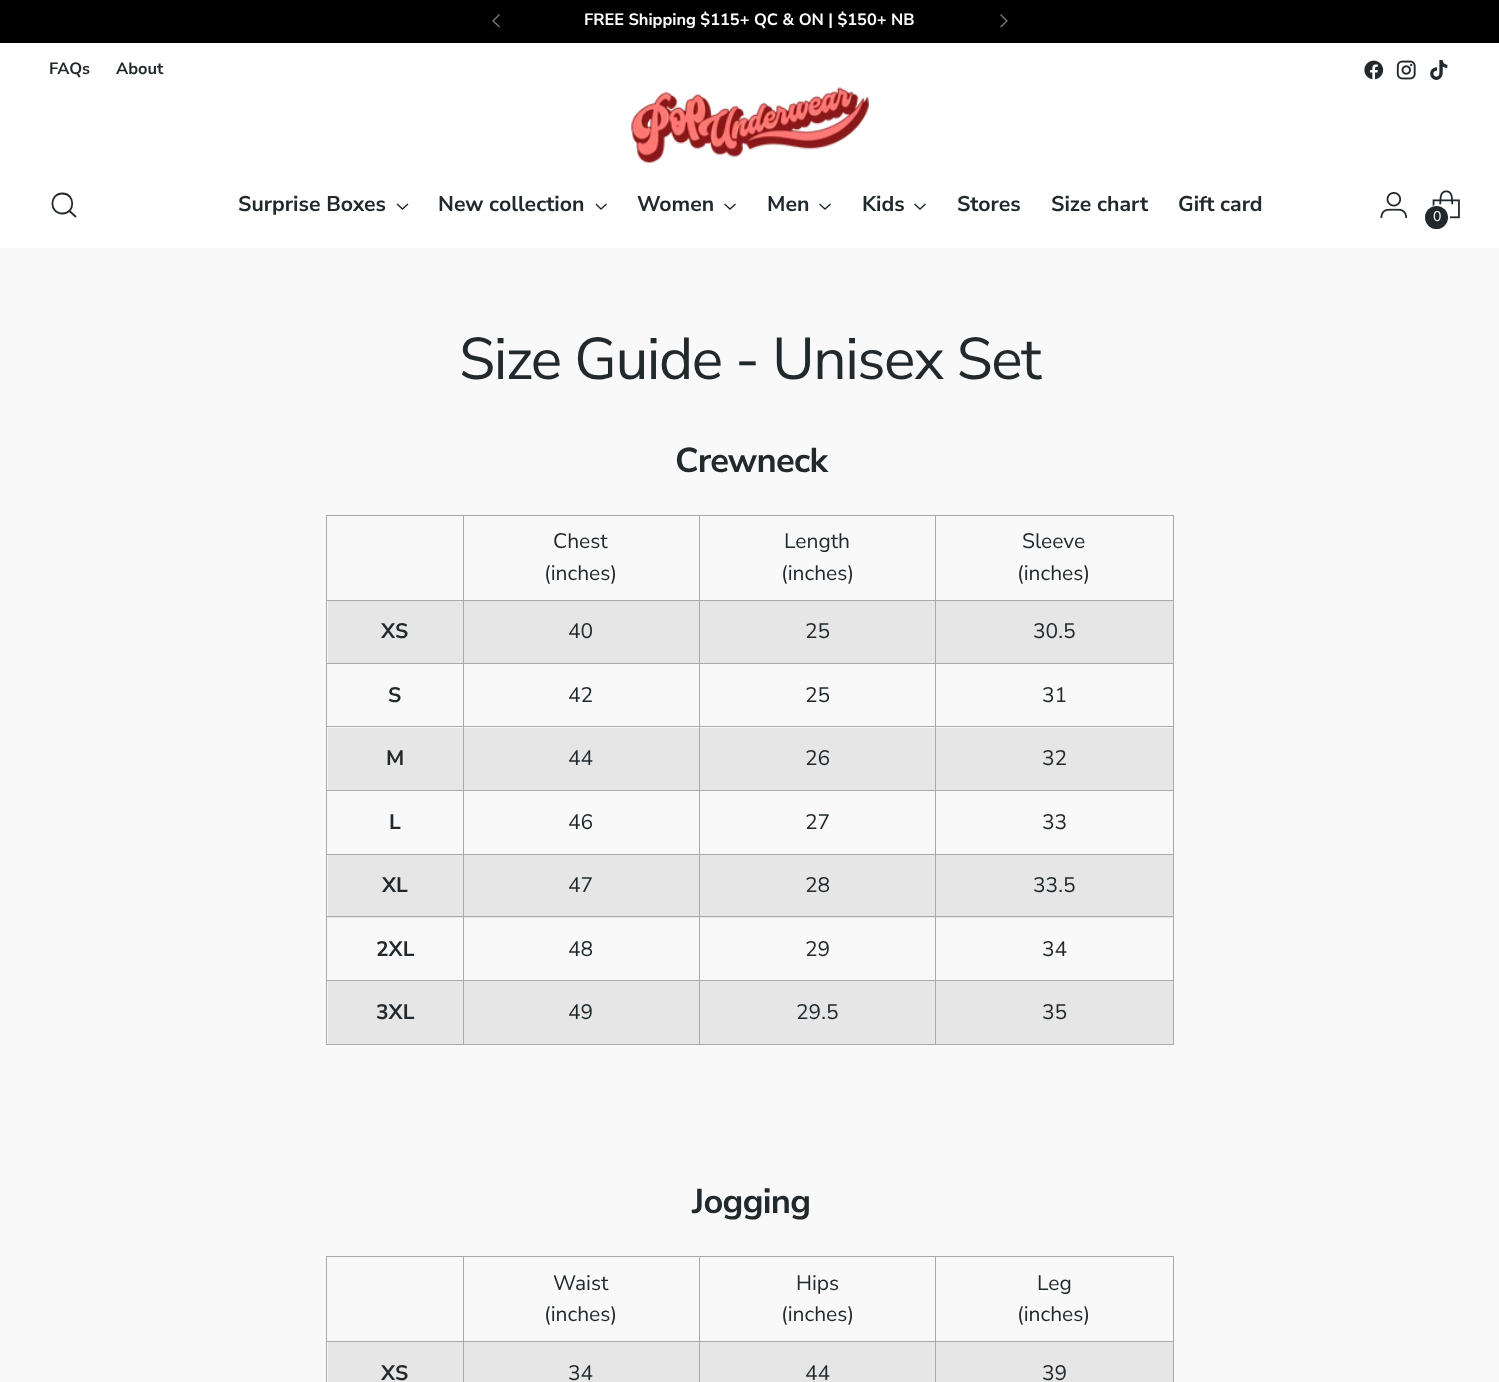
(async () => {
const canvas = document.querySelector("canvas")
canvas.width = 1499
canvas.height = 1382
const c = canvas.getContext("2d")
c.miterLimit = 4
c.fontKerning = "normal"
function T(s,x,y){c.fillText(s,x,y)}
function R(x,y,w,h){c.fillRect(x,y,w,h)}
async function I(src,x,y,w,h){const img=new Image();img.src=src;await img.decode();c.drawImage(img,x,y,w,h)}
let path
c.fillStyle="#f9f9f9"
R(0,0,1499,1382)
c.fillStyle="#000"
R(0,0,1499,43)
c.font="bold 16.4px Nunito Sans"
c.fillStyle="#fff"
T("FREE Shipping $115+ QC & ON | $150+ NB",584,25)
path = new Path2D("M499.5 14.5l-6.5 6.5l6.5 6")
c.strokeStyle="#808080"
c.lineWidth=1.2
c.stroke(path)
path = new Path2D("M1000.5 27l6.5-6l-6.5-6.5")
c.stroke(path)
R(0,43,1499,205)
c.fillStyle="#22292d"
T("FAQs",49,74)
T("About",116,74)
await I("1.png",1364,60,20,20)
await I("2.png",1396,60,20,20)
await I("3.png",1430,60,18,20)
await I("4.png",631,87,238,76)
path = new Path2D("M62.5 213.5c13 0 13-20 0-20c-13.5 0-13.5 20 0 20z")
c.strokeStyle="#22292d"
c.lineWidth=1.8
c.lineCap="round"
c.stroke(path)
path = new Path2D("M69.5 211l6.5 6")
c.lineCap="butt"
c.stroke(path)
c.font="bold 21.25px Nunito Sans"
T("Surprise Boxes",238,211)
path = new Path2D("M397 204l5.5 5l5.5-5")
c.lineWidth=1.4
c.stroke(path)
T("New collection",438,211)
path = new Path2D("M596 204l5 5l5.5-5")
c.stroke(path)
T("Women",637,211)
path = new Path2D("M724.5 204l5.5 5l5.5-5")
c.stroke(path)
T("Men",767,211)
path = new Path2D("M819.5 204l5.5 5l5.5-5")
c.stroke(path)
T("Kids",862,211)
path = new Path2D("M914.5 204l5.5 5l5.5-5")
c.stroke(path)
T("Stores",957,211)
T("Size chart",1051,211)
T("Gift card",1178,211)
await I("5.png",1380,192,28,26)
await I("6.png",1432,190,28,29)
c.beginPath()
c.arc(1437,218,12,0,7)
c.strokeStyle="#fff"
c.lineWidth=2
c.stroke()
c.beginPath()
c.arc(1436.5,217.5,11.5,0,7)
c.fill()
c.font="14px Nunito Sans"
c.fillStyle="#fff"
T("0",1433,221)
c.letterSpacing="-1.5px"
c.font="58.75px Nunito Sans"
c.fillStyle="#22292d"
T("Size Guide - Unisex Set",459,379)
c.letterSpacing="-0.75px"
c.font="bold 34.5px Nunito Sans"
T("Crewneck",675,472)
c.fillStyle="#aaa"
R(935,515,239,1)
R(935,600,239,1)
c.fillStyle="#e6e6e6"
R(328,601,845,62)
c.fillStyle="#aaa"
R(935,663,239,1)
R(935,726,239,1)
c.fillStyle="#e6e6e6"
R(328,728,845,62)
c.fillStyle="#aaa"
R(935,790,239,1)
R(935,854,239,1)
c.fillStyle="#e6e6e6"
R(328,855,845,63)
c.fillStyle="#aaa"
R(935,916,239,1)
R(935,980,239,1)
c.fillStyle="#e6e6e6"
R(328,981,845,63)
c.fillStyle="#aaa"
R(1173,980,1,65)
R(935,1044,239,1)
R(935,980,1,65)
R(699,980,237,1)
R(935,916,1,65)
R(699,916,237,1)
R(935,854,1,64)
R(699,854,237,1)
R(935,790,1,65)
R(699,790,237,1)
R(935,726,1,65)
R(699,726,237,1)
R(935,663,1,65)
R(699,663,237,1)
R(935,600,1,64)
R(699,600,237,1)
R(935,515,1,86)
R(699,515,237,1)
R(699,1044,237,1)
R(699,980,1,65)
R(463,980,237,1)
R(699,916,1,65)
R(463,916,237,1)
R(699,854,1,64)
R(463,854,237,1)
R(699,790,1,65)
R(463,790,237,1)
R(699,726,1,65)
R(463,726,237,1)
R(699,663,1,65)
R(463,663,237,1)
R(699,600,1,64)
R(463,600,237,1)
R(699,515,1,86)
R(463,515,237,1)
R(463,1044,237,1)
R(463,980,1,65)
R(326,980,138,1)
R(463,916,1,65)
R(326,916,138,1)
R(463,854,1,64)
R(326,854,138,1)
R(463,790,1,65)
R(326,790,138,1)
R(463,726,1,65)
R(326,726,138,1)
R(463,663,1,65)
R(326,663,138,1)
R(463,600,1,64)
R(326,600,138,1)
R(463,515,1,86)
R(326,515,138,1)
R(326,1044,138,1)
R(326,980,1,65)
R(326,916,1,65)
R(326,854,1,64)
R(326,790,1,65)
R(326,726,1,65)
R(326,663,1,65)
R(326,600,1,64)
R(326,515,1,86)
c.letterSpacing="0px"
c.font="21px Nunito Sans"
c.fillStyle="#22292d"
T("Chest",553,548)
T("(inches)",544,580)
T("Length",784,548)
T("(inches)",781,580)
c.fillStyle="#aaa"
R(1173,916,1,65)
R(1173,854,1,64)
R(1173,790,1,65)
R(1173,726,1,65)
R(1173,663,1,65)
R(1173,600,1,64)
R(1173,515,1,86)
c.fillStyle="#22292d"
T("Sleeve",1022,548)
T("(inches)",1017,580)
c.font="bold 21px Nunito Sans"
T("XS",381,638)
c.font="21px Nunito Sans"
T("40",568,638)
T("25",805,638)
T("30.5",1033,638)
c.font="bold 21px Nunito Sans"
T("S",388,702)
c.font="21px Nunito Sans"
T("42",568,702)
T("25",805,702)
T("31",1042,702)
c.font="bold 21px Nunito Sans"
T("M",386,765)
c.font="21px Nunito Sans"
T("44",568,765)
T("26",805,765)
T("32",1042,765)
c.font="bold 21px Nunito Sans"
T("L",389,829)
c.font="21px Nunito Sans"
T("46",568,829)
T("27",805,829)
T("33",1042,829)
c.font="bold 21px Nunito Sans"
T("XL",382,892)
c.font="21px Nunito Sans"
T("47",568,892)
T("28",805,892)
T("33.5",1033,892)
c.font="bold 21px Nunito Sans"
T("2XL",376,956)
c.font="21px Nunito Sans"
T("48",568,956)
T("29",805,956)
T("34",1042,956)
c.font="bold 21px Nunito Sans"
T("3XL",376,1019)
c.font="21px Nunito Sans"
T("49",568,1019)
T("29.5",796,1019)
T("35",1042,1019)
c.letterSpacing="-0.75px"
c.font="bold 34.5px Nunito Sans"
T("Jogging",692,1213)
c.fillStyle="#aaa"
R(935,1256,239,1)
c.fillStyle="#e6e6e6"
R(328,1342,845,40)
c.fillStyle="#aaa"
R(935,1341,239,1)
R(935,1341,1,41)
R(699,1341,237,1)
R(935,1256,1,87)
R(699,1256,237,1)
R(699,1341,1,41)
R(463,1341,237,1)
R(699,1256,1,87)
R(463,1256,237,1)
R(463,1341,1,41)
R(326,1341,138,1)
R(463,1256,1,87)
R(326,1256,138,1)
R(326,1341,1,41)
R(326,1256,1,87)
c.letterSpacing="0px"
c.font="21px Nunito Sans"
c.fillStyle="#22292d"
T("Waist",553,1290)
T("(inches)",544,1321)
T("Hips",796,1290)
T("(inches)",781,1321)
c.fillStyle="#aaa"
R(1173,1341,1,41)
R(1173,1256,1,87)
c.fillStyle="#22292d"
T("Leg",1037,1290)
T("(inches)",1017,1321)
c.font="bold 21px Nunito Sans"
T("XS",381,1380)
c.font="21px Nunito Sans"
T("34",568,1380)
T("44",805,1380)
T("39",1042,1380)
})()
